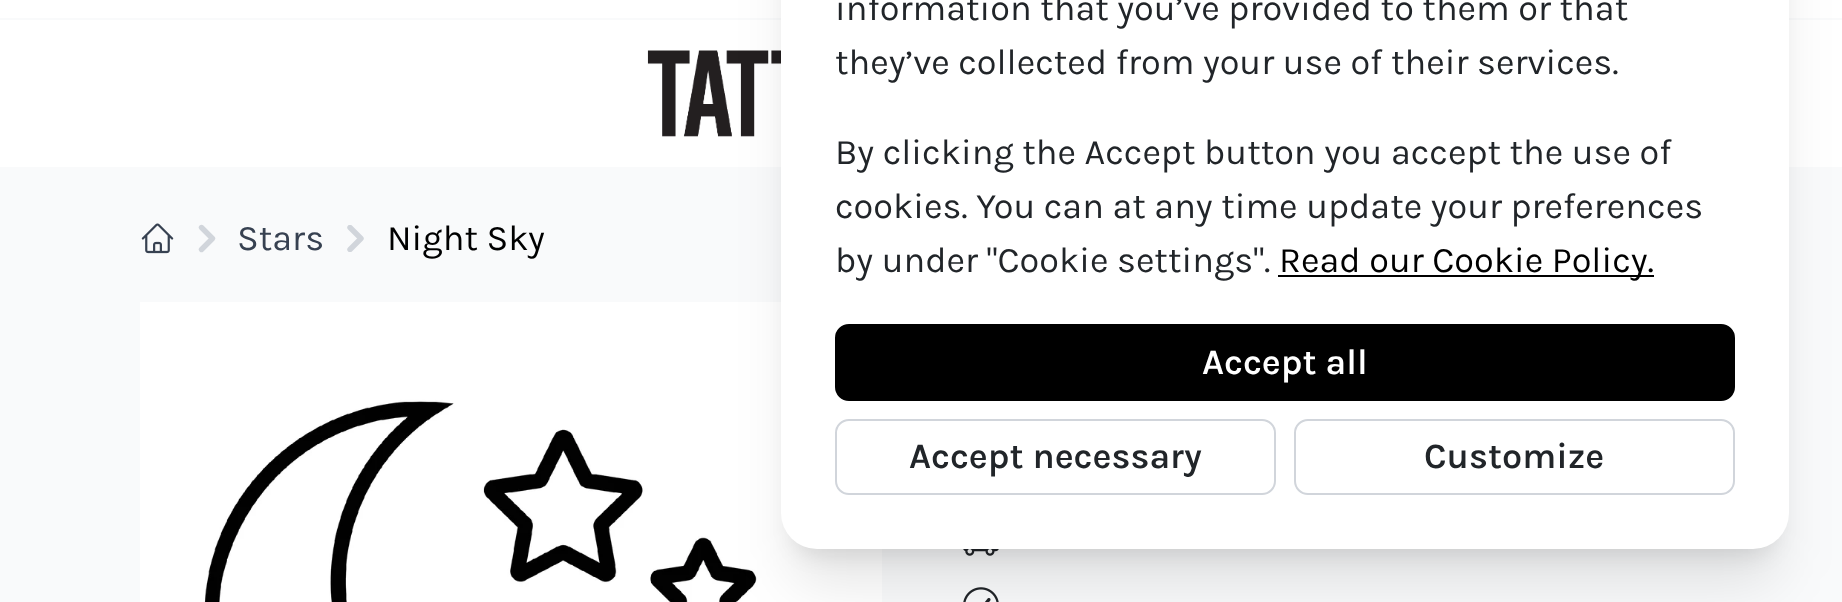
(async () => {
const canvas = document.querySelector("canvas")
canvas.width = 1842
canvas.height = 602
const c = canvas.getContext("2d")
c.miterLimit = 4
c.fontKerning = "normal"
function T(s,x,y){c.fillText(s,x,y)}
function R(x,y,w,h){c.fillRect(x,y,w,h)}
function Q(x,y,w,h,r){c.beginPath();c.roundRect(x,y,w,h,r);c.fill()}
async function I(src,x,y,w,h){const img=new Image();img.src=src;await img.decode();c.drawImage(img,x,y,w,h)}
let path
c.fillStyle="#f9fafb"
R(0,0,1842,602)
c.fillStyle="#fff"
R(0,0,1842,167)
c.fillStyle="#f9fafb"
R(0,18,1842,2)
await I("1.png",647,50,134,87)
await I("2.png",141,223,33,31)
path = new Path2D("M201.5 249.5l11-11l-11-11")
c.strokeStyle="#d1d5db"
c.lineWidth=5.4
c.lineCap="round"
c.lineJoin="round"
c.stroke(path)
c.font="36px Karla"
c.fillStyle="#374151"
T("Stars",237,250)
c.save()
c.beginPath()
c.rect(342,225,27,27)
c.clip()
path = new Path2D("M350 249.5l11-11l-11-11")
c.stroke(path)
c.restore()
c.fillStyle="#000"
T("Night Sky",387,250)
await I("3.png",140,302,742,300)
await I("4.png",963,549,36,7)
await I("5.png",963,587,36,15)
c.fillStyle="#0000001a"
c.filter="blur(11px)"
c.beginPath()
c.roundRect(794,-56,981,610,23)
c.fill()
c.filter="none"
c.filter="blur(28px)"
c.beginPath()
c.roundRect(792,-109,986,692,25)
c.fill()
c.filter="none"
c.fillStyle="#fff"
Q(781,-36,1008,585,36)
c.fillStyle="#212529"
T("information that you’ve provided to them or that",835,20)
T("they’ve collected from your use of their services.",835,74)
T("By clicking the Accept button you accept the use of",835,164)
T("cookies. You can at any time update your preferences",835,218)
T("by under \"Cookie settings\".",835,272)
c.fillStyle="#000"
R(1278,275,376,2)
T("Read our Cookie Policy.",1279,272)
c.beginPath()
c.roundRect(836,325,898,75,13)
c.fill()
c.strokeStyle="#000"
c.lineWidth=2
c.lineJoin="miter"
c.stroke()
c.font="600 36px Karla"
c.fillStyle="#fff"
T("Accept all",1202,374)
c.beginPath()
c.roundRect(836,420,439,74,13)
c.strokeStyle="#d1d5db"
c.stroke()
c.fillStyle="#212529"
T("Accept necessary",909,468)
c.beginPath()
c.roundRect(1295,420,439,74,13)
c.stroke()
T("Customize",1424,468)
})()
